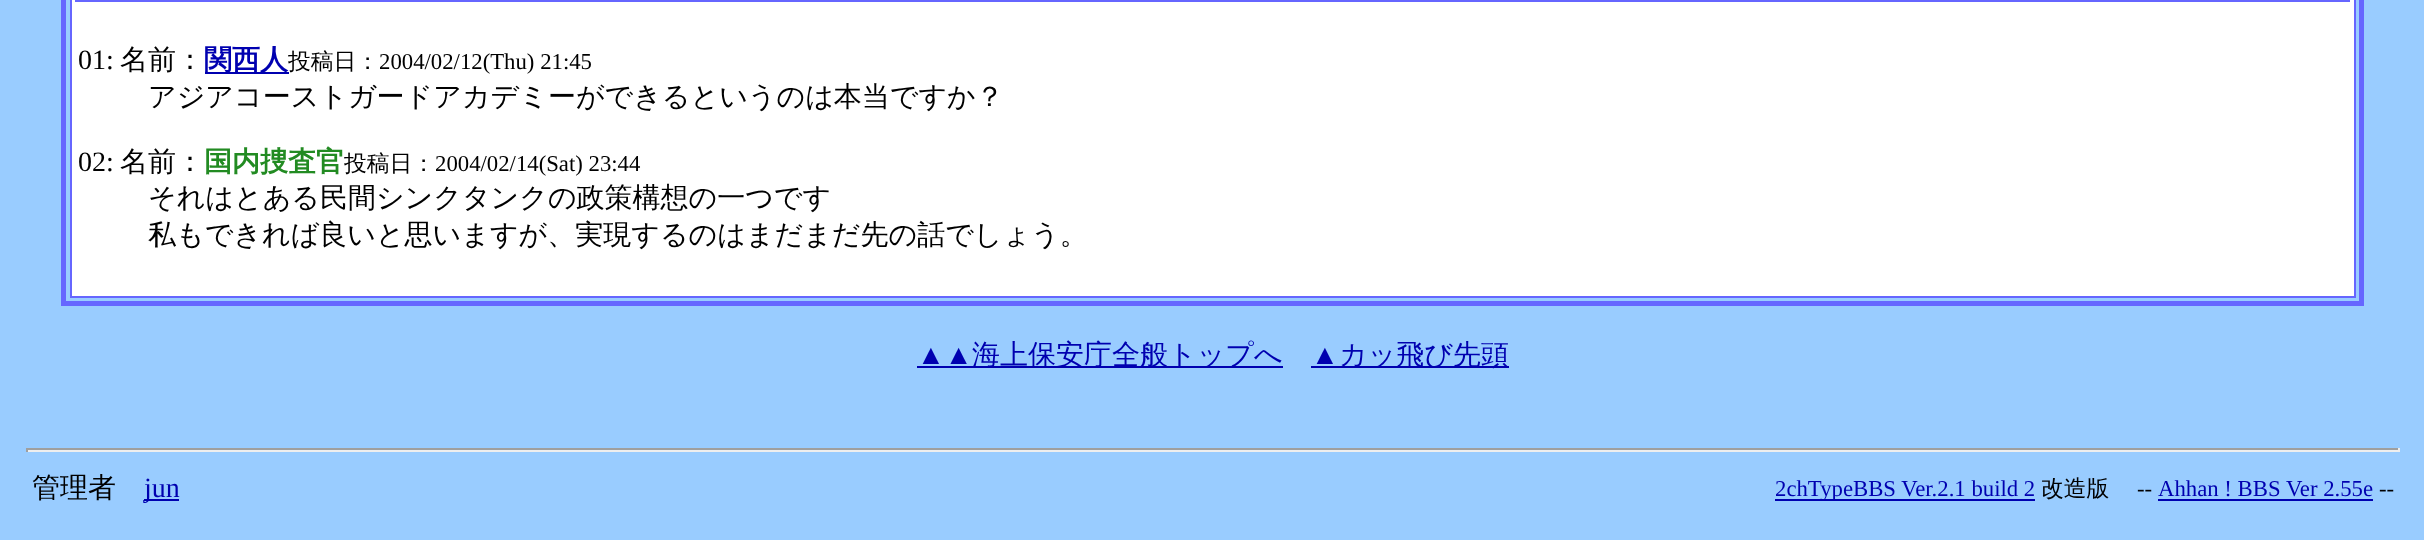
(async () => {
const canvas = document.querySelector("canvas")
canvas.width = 2424
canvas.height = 540
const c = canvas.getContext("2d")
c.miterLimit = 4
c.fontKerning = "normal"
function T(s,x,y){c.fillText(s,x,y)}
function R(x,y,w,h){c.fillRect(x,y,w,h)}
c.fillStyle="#9cf"
R(0,0,2424,540)
c.strokeStyle="#66f"
c.lineWidth=5
c.strokeRect(63.5,-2.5,2298,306)
c.fillStyle="#fff"
c.beginPath()
c.rect(71,-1,2284,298)
c.fill()
c.lineWidth=2
c.stroke()
c.fillStyle="#66f"
R(75,0,2275,2)
c.font="28px Liberation Serif"
c.fillStyle="#000"
T("01:",78,69)
c.font="500 28px WenQuanYi Zen Hei"
T("名前：",120,69)
c.fillStyle="#0000b0"
R(205,72,84,2)
c.font="bold 28px WenQuanYi Zen Hei"
T("関西人",204,69)
c.font="500 22.75px WenQuanYi Zen Hei"
c.fillStyle="#000"
T("投稿日：",288,69)
c.font="22.75px Liberation Serif"
T("2004/02/12(Thu) 21:45",379,69)
c.font="500 28px WenQuanYi Zen Hei"
T("アジアコーストガードアカデミーができるというのは本当ですか？",148,106)
c.font="28px Liberation Serif"
T("02:",78,171)
c.font="500 28px WenQuanYi Zen Hei"
T("名前：",120,171)
c.font="bold 28px WenQuanYi Zen Hei"
c.fillStyle="#228b22"
T("国内捜査官",204,171)
c.font="500 22.75px WenQuanYi Zen Hei"
c.fillStyle="#000"
T("投稿日：",344,171)
c.font="22.75px Liberation Serif"
T("2004/02/14(Sat) 23:44",435,171)
c.font="500 28px WenQuanYi Zen Hei"
T("それはとある民間シンクタンクの政策構想の一つです",148,207)
T("私もできれば良いと思いますが、実現するのはまだまだ先の話でしょう。",148,244)
c.font="28px Liberation Serif"
c.fillStyle="#0000b0"
T("▲▲",917,364)
R(917,366,366,2)
c.font="500 28px WenQuanYi Zen Hei"
T("海上保安庁全般トップへ",972,364)
c.font="28px Liberation Serif"
T("▲",1311,364)
R(1311,366,198,2)
c.font="500 28px WenQuanYi Zen Hei"
T("カッ飛び先頭",1339,364)
c.fillStyle="#9f9f9f"
R(26,448,2373,2)
c.fillStyle="#eee"
R(2398,448,2,4)
R(26,450,2373,2)
c.fillStyle="#9f9f9f"
R(26,448,2,4)
c.fillStyle="#000"
T("管理者",32,497)
c.fillStyle="#0000b0"
R(144,499,35,2)
c.font="28px Liberation Serif"
T("jun",144,497)
R(1775,499,260,2)
c.font="22.75px Liberation Serif"
T("2chTypeBBS Ver.2.1 build 2",1775,496)
c.font="500 22.75px WenQuanYi Zen Hei"
c.fillStyle="#000"
T("改造版",2041,496)
c.font="22.75px Liberation Serif"
T("--",2137,496)
c.fillStyle="#0000b0"
T("Ahhan ! BBS Ver 2.55e",2158,496)
R(2158,499,215,2)
c.fillStyle="#000"
T("--",2379,496)
})()
